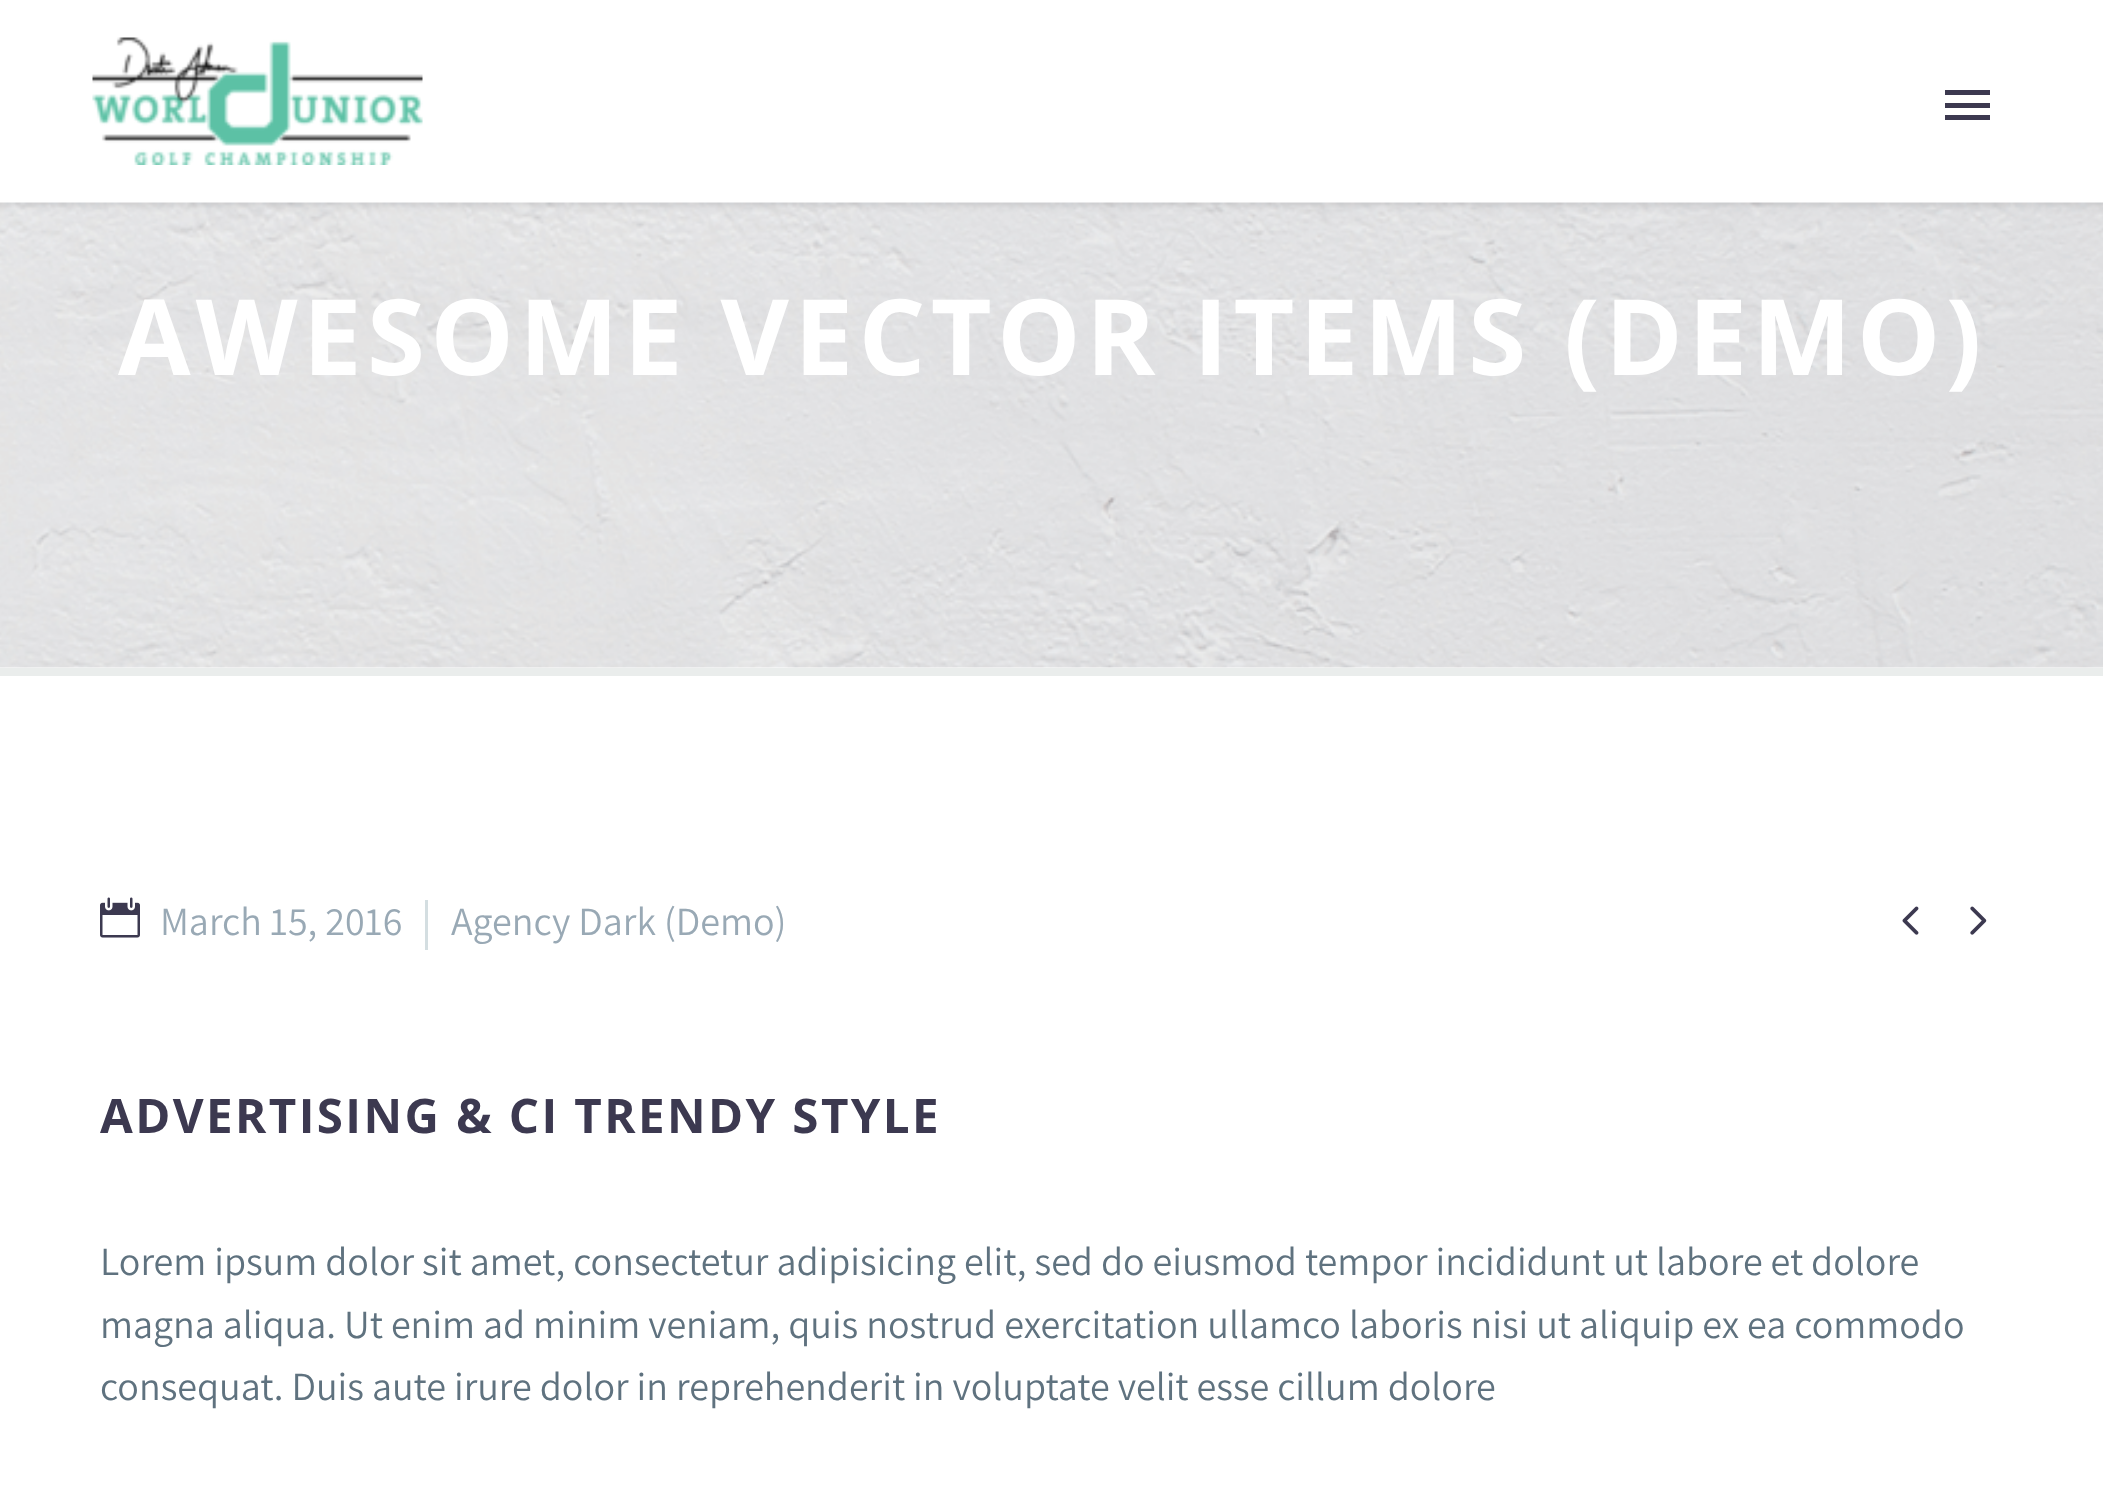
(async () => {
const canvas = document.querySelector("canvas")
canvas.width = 2103
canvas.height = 1493
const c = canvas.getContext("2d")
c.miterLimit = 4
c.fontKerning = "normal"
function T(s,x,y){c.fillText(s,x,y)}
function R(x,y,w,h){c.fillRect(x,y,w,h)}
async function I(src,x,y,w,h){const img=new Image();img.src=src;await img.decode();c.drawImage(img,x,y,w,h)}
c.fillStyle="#fff"
R(0,0,2103,1493)
await I("1.png",92,37,331,128)
c.fillStyle="#3c3950"
R(1945,90,45,5)
R(1945,103,45,5)
R(1945,115,45,5)
await I("2.png",0,202,2103,466)
c.fillStyle="#eaedec"
R(0,668,2103,8)
c.letterSpacing="5.25px"
c.font="bold 105.25px Open Sans"
c.fillStyle="#fff"
T("AWESOME VECTOR ITEMS (DEMO)",118,375)
await I("3.png",100,897,40,41)
c.letterSpacing="0px"
c.font="40px Assistant"
c.fillStyle="#99a9b5"
T("March 15, 2016",160,935)
c.fillStyle="#d4dee1"
R(425,900,3,50)
c.fillStyle="#99a9b5"
T("Agency Dark (Demo)",451,935)
await I("4.png",1902,906,17,29)
await I("5.png",1970,906,17,29)
c.letterSpacing="2.4px"
c.font="bold 47.5px Open Sans"
c.fillStyle="#3c3950"
T("ADVERTISING & CI TRENDY STYLE",100,1133)
c.letterSpacing="0px"
c.font="40px Assistant"
c.fillStyle="#5f727f"
T("Lorem ipsum dolor sit amet, consectetur adipisicing elit, sed do eiusmod tempor incididunt ut labore et dolore",100,1275)
T("magna aliqua. Ut enim ad minim veniam, quis nostrud exercitation ullamco laboris nisi ut aliquip ex ea commodo",100,1338)
T("consequat. Duis aute irure dolor in reprehenderit in voluptate velit esse cillum dolore",100,1400)
})()
